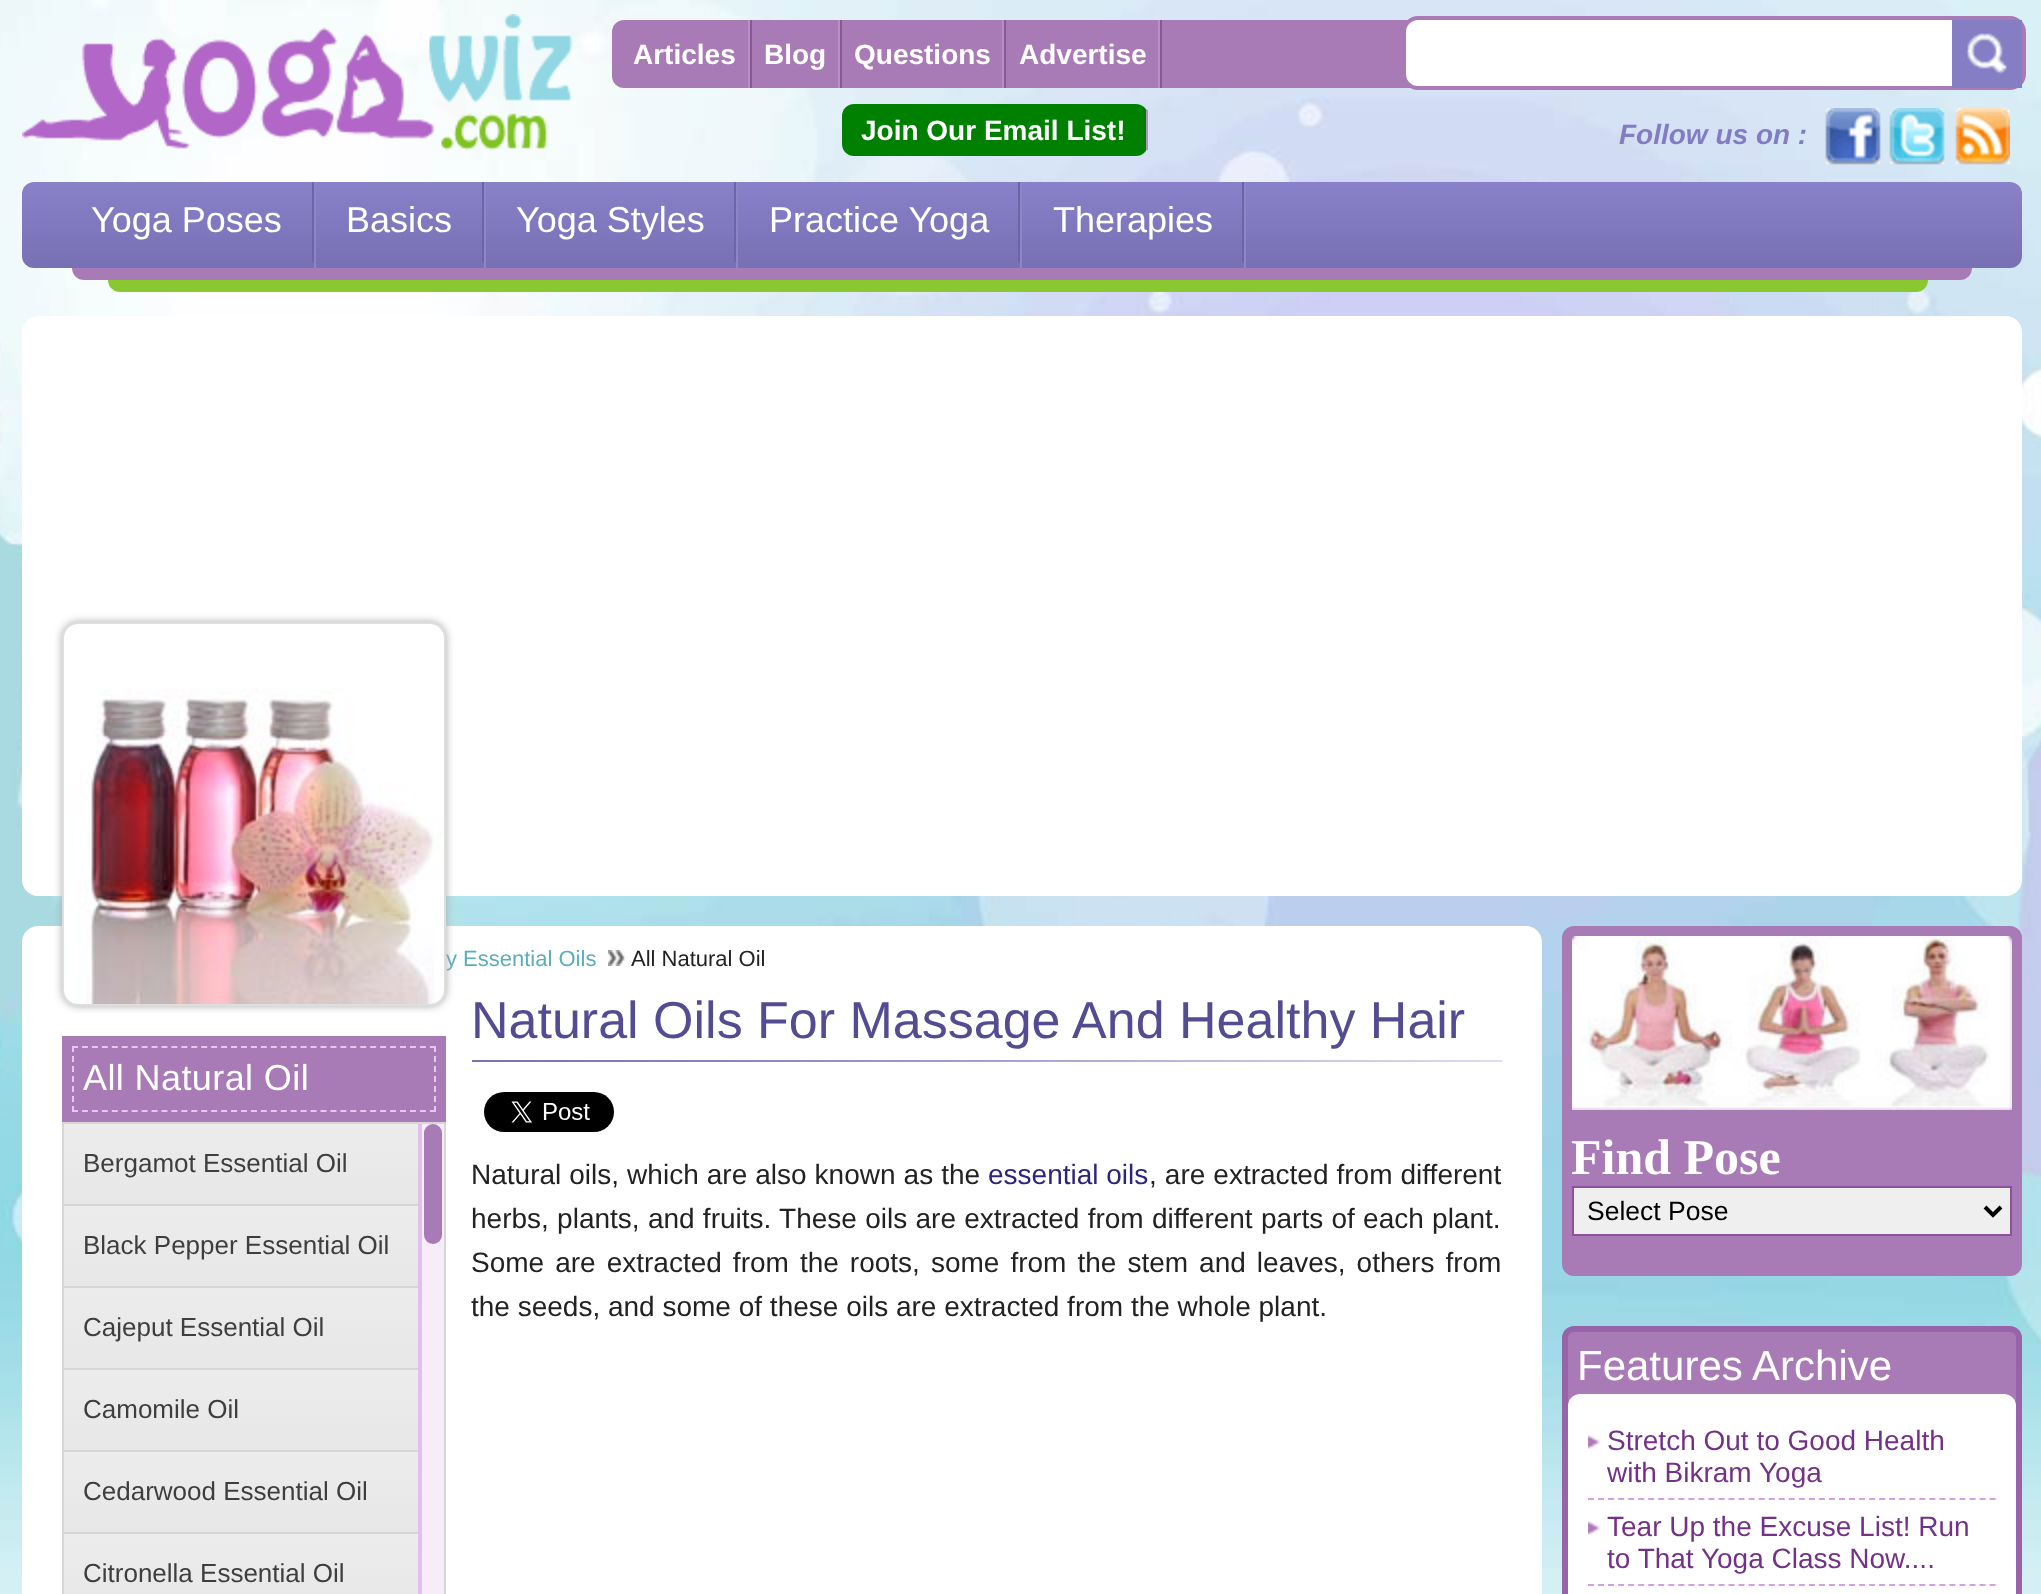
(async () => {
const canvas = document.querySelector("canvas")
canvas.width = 2041
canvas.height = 1594
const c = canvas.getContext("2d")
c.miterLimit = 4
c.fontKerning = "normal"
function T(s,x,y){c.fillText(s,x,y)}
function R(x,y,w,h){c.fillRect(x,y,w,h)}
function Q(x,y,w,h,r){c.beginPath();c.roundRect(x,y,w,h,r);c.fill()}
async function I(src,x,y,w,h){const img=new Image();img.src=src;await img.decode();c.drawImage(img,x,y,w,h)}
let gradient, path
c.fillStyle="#fff"
R(0,0,2041,1594)
await I("1.png",0,0,2041,1594)
await I("2.png",22,14,551,137)
c.fillStyle="#a87ab6"
Q(612,20,1410,68,12)
c.fillStyle="#865894"
R(750,20,2,68)
c.fillStyle="#b98dc6"
R(748,20,2,68)
c.font="bold 28px Liberation Sans"
c.fillStyle="#fff"
T("Articles",633,64)
c.fillStyle="#865894"
R(840,20,2,68)
c.fillStyle="#b98dc6"
R(838,20,2,68)
c.fillStyle="#fff"
T("Blog",764,64)
c.fillStyle="#865894"
R(1004,20,2,68)
c.fillStyle="#b98dc6"
R(1002,20,2,68)
c.fillStyle="#fff"
T("Questions",854,64)
c.fillStyle="#865894"
R(1160,20,2,68)
c.fillStyle="#b98dc6"
R(1158,20,2,68)
c.fillStyle="#fff"
T("Advertise",1019,64)
c.beginPath()
c.roundRect(1404,18,620,70,14)
c.fill()
c.strokeStyle="#a87ab6"
c.lineWidth=4
c.stroke()
c.fillStyle="#857ec5"
R(1952,20,70,68)
await I("3.png",1966,33,41,42)
c.fillStyle="#008000"
Q(842,104,306,52,12)
c.fillStyle="#b98dc6"
R(1146,110,2,40)
c.fillStyle="#fff"
T("Join Our Email List!",861,140)
c.font="italic bold 28px Liberation Sans"
c.fillStyle="#847cc3"
T("Follow us on :",1619,144)
await I("4.png",1825,108,56,57)
await I("5.png",1889,108,56,57)
await I("6.png",1955,108,55,57)
c.fillStyle="#89c830"
Q(108,262,1820,30,12)
c.fillStyle="#a87ab6"
Q(72,250,1900,30,12)
gradient = c.createLinearGradient(1022,182,1022,268)
gradient.addColorStop(0,"#8981c9")
gradient.addColorStop(1,"#7770b4")
c.fillStyle = gradient
Q(22,182,2000,86,12)
c.fillStyle="#8d85c5"
R(314,182,2,86)
c.fillStyle="#6d65ac"
R(312,182,2,80)
c.font="36px Liberation Sans"
c.fillStyle="#fff"
T("Yoga Poses",91,232)
c.fillStyle="#8d85c5"
R(484,182,2,86)
c.fillStyle="#6d65ac"
R(482,182,2,80)
c.fillStyle="#fff"
T("Basics",346,232)
c.fillStyle="#8d85c5"
R(736,182,2,86)
c.fillStyle="#6d65ac"
R(734,182,2,80)
c.fillStyle="#fff"
T("Yoga Styles",516,232)
c.fillStyle="#8d85c5"
R(1020,182,2,86)
c.fillStyle="#6d65ac"
R(1018,182,2,80)
c.fillStyle="#fff"
T("Practice Yoga",769,232)
c.fillStyle="#8d85c5"
R(1244,182,2,86)
c.fillStyle="#6d65ac"
R(1242,182,2,80)
c.fillStyle="#fff"
T("Therapies",1053,232)
Q(22,316,2000,580,16)
Q(22,926,1520,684,16)
c.font="22px Liberation Sans"
c.fillStyle="#5aadbb"
T("y Essential Oils",446,966)
await I("7.png",608,950,17,16)
c.fillStyle="#222"
T("All Natural Oil",631,966)
c.fillStyle="#a9a9a9"
c.filter="blur(4px)"
c.beginPath()
c.roundRect(62,622,384,384,16)
c.fill()
c.filter="none"
c.beginPath()
c.roundRect(63,623,382,382,15)
c.strokeStyle="#dedede"
c.lineWidth=2
c.stroke()
await I("8.png",64,624,380,380)
c.fillStyle="#a87ab6"
R(62,1036,384,86)
path = new Path2D("M72 1047h364")
c.strokeStyle="#e7c6f1"
c.setLineDash([6,3.94])
c.stroke(path)
path = new Path2D("M435 1046v66")
c.setLineDash([6,4])
c.stroke(path)
path = new Path2D("M72 1111h364")
c.setLineDash([6,3.94])
c.stroke(path)
path = new Path2D("M73 1046v66")
c.setLineDash([6,4])
c.stroke(path)
c.letterSpacing="0.4px"
c.font="36px Liberation Sans"
c.fillStyle="#fff"
T("All Natural Oil",83,1090)
c.strokeStyle="#d6d6d6"
c.setLineDash([])
c.strokeRect(63,1123,382,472)
gradient = c.createLinearGradient(255,1124,255,1204)
gradient.addColorStop(0,"#ececec")
gradient.addColorStop(1,"#e7e7e7")
c.fillStyle = gradient
R(64,1124,354,80)
c.fillStyle="#d6d6d6"
R(64,1204,354,2)
c.letterSpacing="0px"
c.font="26px Liberation Sans"
c.fillStyle="#3e3e3e"
T("Bergamot Essential Oil",83,1172)
gradient = c.createLinearGradient(255,1206,255,1286)
gradient.addColorStop(0,"#ececec")
gradient.addColorStop(1,"#e7e7e7")
c.fillStyle = gradient
R(64,1206,354,80)
c.fillStyle="#d6d6d6"
R(64,1286,354,2)
c.fillStyle="#3e3e3e"
T("Black Pepper Essential Oil",83,1254)
gradient = c.createLinearGradient(255,1288,255,1368)
gradient.addColorStop(0,"#ececec")
gradient.addColorStop(1,"#e7e7e7")
c.fillStyle = gradient
R(64,1288,354,80)
c.fillStyle="#d6d6d6"
R(64,1368,354,2)
c.fillStyle="#3e3e3e"
T("Cajeput Essential Oil",83,1336)
gradient = c.createLinearGradient(255,1370,255,1450)
gradient.addColorStop(0,"#ececec")
gradient.addColorStop(1,"#e7e7e7")
c.fillStyle = gradient
R(64,1370,354,80)
c.fillStyle="#d6d6d6"
R(64,1450,354,2)
c.fillStyle="#3e3e3e"
T("Camomile Oil",83,1418)
gradient = c.createLinearGradient(255,1452,255,1532)
gradient.addColorStop(0,"#ececec")
gradient.addColorStop(1,"#e7e7e7")
c.fillStyle = gradient
R(64,1452,354,80)
c.fillStyle="#d6d6d6"
R(64,1532,354,2)
c.fillStyle="#3e3e3e"
T("Cedarwood Essential Oil",83,1500)
gradient = c.createLinearGradient(255,1534,255,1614)
gradient.addColorStop(0,"#ececec")
gradient.addColorStop(1,"#e7e7e7")
c.fillStyle = gradient
R(64,1534,354,60)
c.fillStyle="#3e3e3e"
T("Citronella Essential Oil",83,1582)
c.fillStyle="#f7ecfa"
R(422,1124,22,470)
c.fillStyle="#e4beef"
R(418,1124,4,470)
c.fillStyle="#a87ab6"
Q(424,1124,18,120,9)
await I("9.png",472,1060,1030,2)
c.font="52px Liberation Sans"
c.fillStyle="#544c92"
T("Natural Oils For Massage And Healthy Hair",471,1038)
await I("10.png",484,1092,130,40)
c.wordSpacing="0.25px"
c.font="28px Liberation Sans"
c.fillStyle="#222"
T("Natural oils, which are also known as the",471,1184)
c.wordSpacing="0px"
c.fillStyle="#2d247b"
T("essential oils",988,1184)
c.wordSpacing="0.25px"
c.fillStyle="#222"
T(", are extracted from different",1149,1184)
c.wordSpacing="0.5px"
T("herbs, plants, and fruits. These oils are extracted from different parts of each plant.",471,1228)
c.wordSpacing="3.25px"
T("Some are extracted from the roots, some from the stem and leaves, others from",471,1272)
c.wordSpacing="0px"
T("the seeds, and some of these oils are extracted from the whole plant.",471,1316)
c.fillStyle="#a87ab6"
c.beginPath()
c.roundRect(1567,931,450,340,7)
c.fill()
c.strokeStyle="#a87ab6"
c.lineWidth=10
c.stroke()
await I("11.png",1572,936,440,174)
c.font="bold 50px Liberation Serif"
c.fillStyle="#fff"
T("Find Pose",1571,1174)
c.fillStyle="#efefef"
c.beginPath()
c.rect(1573,1187,438,48)
c.fill()
c.strokeStyle="#8b519d"
c.lineWidth=2
c.stroke()
path = new Path2D("M1985 1207l8 8l8-8")
c.strokeStyle="#000"
c.lineWidth=4
c.stroke(path)
c.font="26.5px Liberation Sans"
c.fillStyle="#000"
T("Select Pose",1587,1220)
c.fillStyle="#a87ab6"
c.beginPath()
c.roundRect(1565,1329,454,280,9)
c.fill()
c.strokeStyle="#9963a9"
c.lineWidth=6
c.stroke()
c.font="42px Liberation Sans"
c.fillStyle="#fff"
T("Features Archive",1577,1380)
Q(1568,1394,448,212,12)
await I("12.png",1588,1435,13,14)
path = new Path2D("M1588 1499h408")
c.strokeStyle="#d59fe5"
c.lineWidth=2
c.setLineDash([6,4.04])
c.stroke(path)
c.font="28px Liberation Sans"
c.fillStyle="#733187"
T("Stretch Out to Good Health",1607,1450)
T("with Bikram Yoga",1607,1482)
await I("12.png",1588,1521,13,14)
path = new Path2D("M1588 1585h408")
c.stroke(path)
T("Tear Up the Excuse List! Run",1607,1536)
T("to That Yoga Class Now....",1607,1568)
})()
